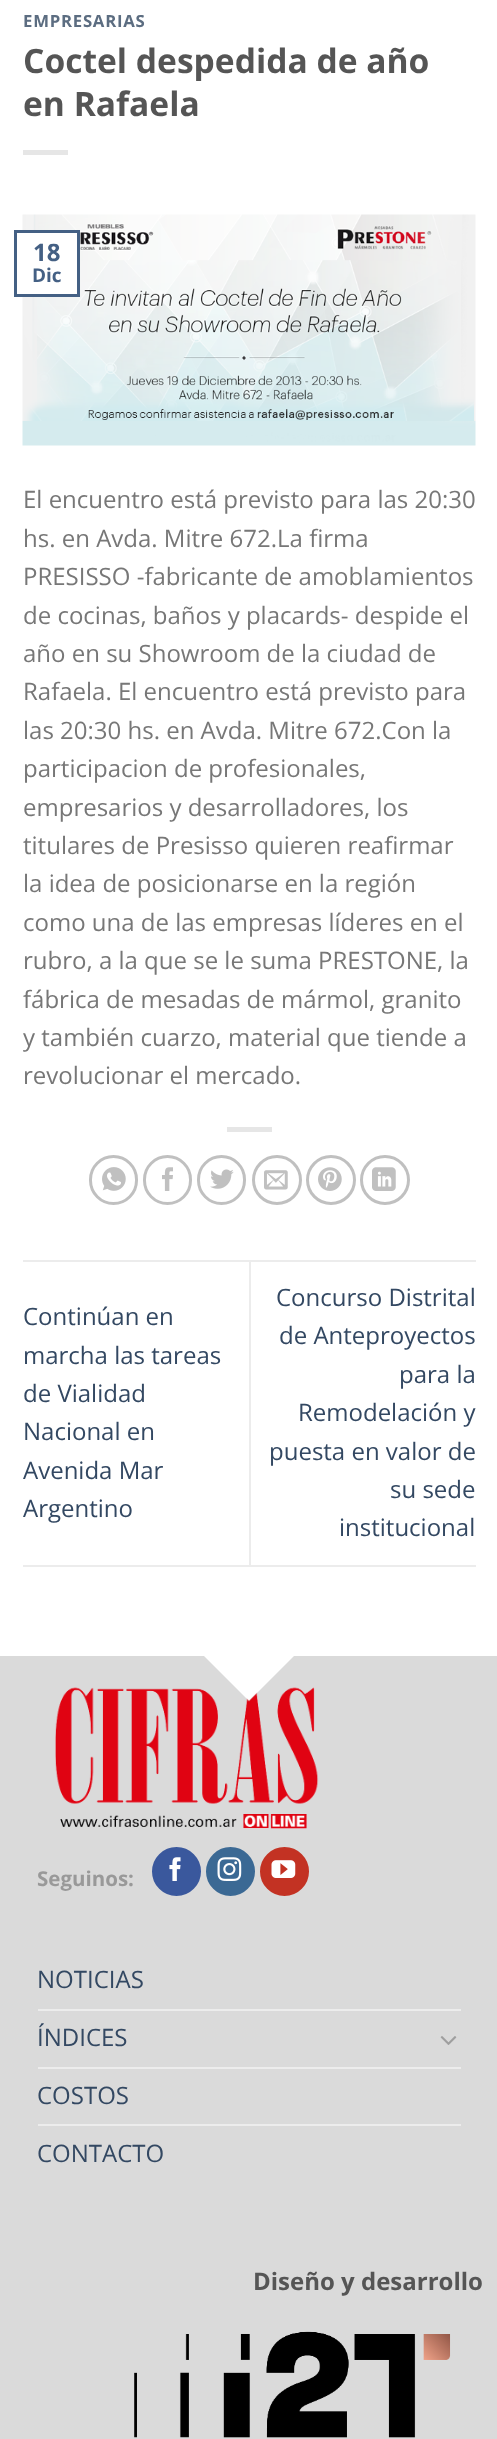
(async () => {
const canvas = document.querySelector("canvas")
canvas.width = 497
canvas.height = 2439
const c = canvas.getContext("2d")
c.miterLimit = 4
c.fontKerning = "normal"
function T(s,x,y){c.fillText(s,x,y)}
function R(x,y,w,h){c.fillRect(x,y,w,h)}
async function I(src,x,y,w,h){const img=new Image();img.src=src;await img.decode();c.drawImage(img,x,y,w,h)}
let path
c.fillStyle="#fff"
R(0,0,497,2439)
c.letterSpacing="0.75px"
c.font="bold 16.75px Open Sans"
c.fillStyle="#5c6d81"
T("EMPRESARIAS",23,27)
c.letterSpacing="0px"
c.font="bold 33.6px Open Sans"
c.fillStyle="#555"
T("Coctel despedida de año",23,73)
T("en Rafaela",23,116)
c.fillStyle="#e6e6e6"
R(23,150,45,5)
await I("1.png",22,214,454,232)
c.fillStyle="#fff"
R(22,233,55,61)
c.strokeStyle="#446084"
c.lineWidth=3
c.strokeRect(15.5,231.5,63,64)
c.font="bold 24px Open Sans"
c.fillStyle="#446084"
T("18",33,261)
c.font="bold 19px Open Sans"
T("Dic",32,282)
c.font="24px Open Sans"
c.fillStyle="#777"
T("El encuentro está previsto para las 20:30",23,508)
T("hs. en Avda. Mitre 672.La firma",23,547)
T("PRESISSO -fabricante de amoblamientos",23,585)
T("de cocinas, baños y placards- despide el",23,624)
T("año en su Showroom de la ciudad de",23,662)
T("Rafaela. El encuentro está previsto para",23,700)
T("las 20:30 hs. en Avda. Mitre 672.Con la",23,739)
T("participacion de profesionales,",23,777)
T("empresarios y desarrolladores, los",23,816)
T("titulares de Presisso quieren reafirmar",23,854)
T("la idea de posicionarse en la región",23,892)
T("como una de las empresas líderes en el",23,931)
T("rubro, a la que se le suma PRESTONE, la",23,969)
T("fábrica de mesadas de mármol, granito",23,1008)
T("y también cuarzo, material que tiende a",23,1046)
T("revolucionar el mercado.",23,1084)
c.fillStyle="#e6e6e6"
R(227,1127,45,5)
c.beginPath()
c.roundRect(90.5,1156.5,46,47,23)
c.strokeStyle="#c0c0c0"
c.stroke()
await I("2.png",102,1167,24,24)
c.beginPath()
c.roundRect(144.5,1156.5,46,47,23)
c.stroke()
await I("3.png",162,1167,11,24)
c.beginPath()
c.roundRect(198.5,1156.5,46,47,23)
c.stroke()
await I("4.png",210,1169,24,20)
c.beginPath()
c.arc(277,1180,23.5,0,7)
c.stroke()
await I("5.png",264,1170,24,20)
c.beginPath()
c.arc(331,1180,23.5,0,7)
c.stroke()
await I("6.png",318,1167,24,24)
c.beginPath()
c.arc(385,1180,23.5,0,7)
c.stroke()
await I("7.png",372,1167,24,24)
c.fillStyle="#ececec"
R(23,1260,453,2)
R(23,1565,453,2)
c.fillStyle="#334862"
T("Continúan en",23,1325)
T("marcha las tareas",23,1364)
T("de Vialidad",23,1402)
T("Nacional en",23,1440)
T("Avenida Mar",23,1479)
T("Argentino",23,1517)
c.fillStyle="#ececec"
R(249,1262,2,303)
c.fillStyle="#334862"
T("Concurso Distrital",276,1306)
T("de Anteproyectos",279,1344)
T("para la",399,1383)
T("Remodelación y",298,1421)
T("puesta en valor de",269,1460)
T("su sede",390,1498)
T("institucional",339,1536)
c.fillStyle="#dadada"
path = new Path2D("M0 1656v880h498v-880h-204l-45 45l-45-45z")
c.fill(path)
await I("8.png",55,1687,264,142)
c.font="bold 20.5px Open Sans"
c.fillStyle="#999"
T("Seguinos:",37,1886)
c.fillStyle="#3a589d"
c.beginPath()
c.arc(176.5,1871.5,23.5,0,7)
c.fill()
c.strokeStyle="#3a589d"
c.lineWidth=2
c.stroke()
await I("9.png",169,1857,12,24)
c.fillStyle="#3b6994"
c.beginPath()
c.arc(230.5,1871.5,23.5,0,7)
c.fill()
c.strokeStyle="#3b6994"
c.stroke()
await I("10.png",217,1857,25,24)
c.fillStyle="#c33223"
c.beginPath()
c.arc(284.5,1871.5,23.5,0,7)
c.fill()
c.strokeStyle="#c33223"
c.stroke()
await I("11.png",271,1860,25,18)
c.font="24px Open Sans"
c.fillStyle="#334862"
T("NOTICIAS",37,1988)
c.fillStyle="#ececec"
R(38,2009,423,2)
c.fillStyle="#334862"
T("ÍNDICES",37,2046)
await I("12.png",440,2036,17,9)
c.fillStyle="#ececec"
R(38,2067,423,2)
c.fillStyle="#334862"
T("COSTOS",37,2104)
c.fillStyle="#ececec"
R(38,2124,423,2)
c.fillStyle="#334862"
T("CONTACTO",37,2162)
c.font="bold 24px Open Sans"
c.fillStyle="#555"
T("Diseño y desarrollo",253,2290)
await I("13.png",134,2331,317,107)
})()
